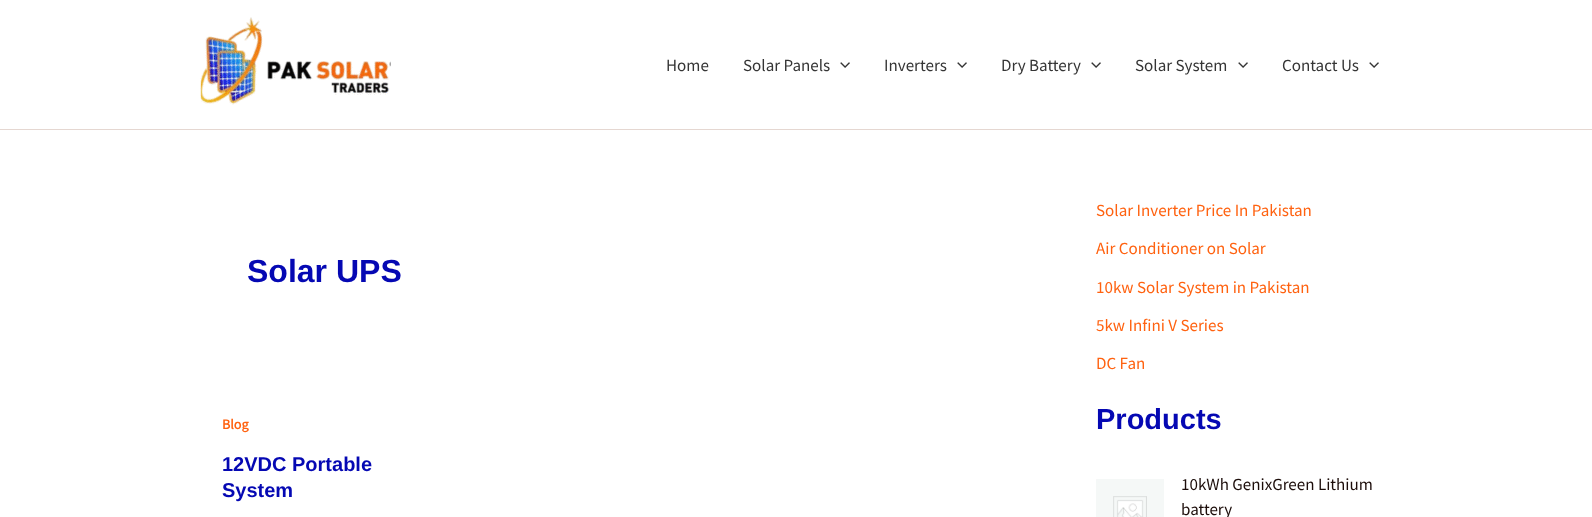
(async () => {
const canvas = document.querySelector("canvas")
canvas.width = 1592
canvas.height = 517
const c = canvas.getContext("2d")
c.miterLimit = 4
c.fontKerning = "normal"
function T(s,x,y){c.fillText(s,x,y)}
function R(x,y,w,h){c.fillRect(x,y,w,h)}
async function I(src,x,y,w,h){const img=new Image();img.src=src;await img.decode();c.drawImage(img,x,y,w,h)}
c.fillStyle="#fff"
R(0,0,1592,517)
c.fillStyle="#e5d7d1"
R(0,129,1592,1)
await I("1.png",200,17,191,88)
c.font="17px Source Sans Pro"
c.fillStyle="#353535"
T("Home",666,71)
T("Solar Panels",743,71)
await I("2.png",840,62,10,6)
T("Inverters",884,71)
await I("2.png",957,62,10,6)
T("Dry Battery",1001,71)
await I("2.png",1091,62,10,6)
T("Solar System",1135,71)
await I("2.png",1238,62,10,6)
T("Contact Us",1282,71)
await I("2.png",1369,62,10,6)
c.font="bold 32px Liberation Sans"
c.fillStyle="#0508b3"
T("Solar UPS",247,282)
c.font="bold 14px Source Sans Pro"
c.fillStyle="#ff6210"
T("Blog",222,429)
c.font="bold 20px Liberation Sans"
c.fillStyle="#0508b3"
T("12VDC Portable",222,471)
T("System",222,497)
c.font="17px Source Sans Pro"
c.fillStyle="#ff6210"
T("Solar Inverter Price In Pakistan",1096,216)
T("Air Conditioner on Solar",1096,254)
T("10kw Solar System in Pakistan",1096,293)
T("5kw Infini V Series",1096,331)
T("DC Fan",1096,369)
c.font="bold 29px Liberation Sans"
c.fillStyle="#0508b3"
T("Products",1096,429)
await I("3.png",1096,479,68,38)
c.font="17px Source Sans Pro"
c.fillStyle="#1c0d0a"
T("10kWh GenixGreen Lithium",1181,490)
T("battery",1181,515)
})()
